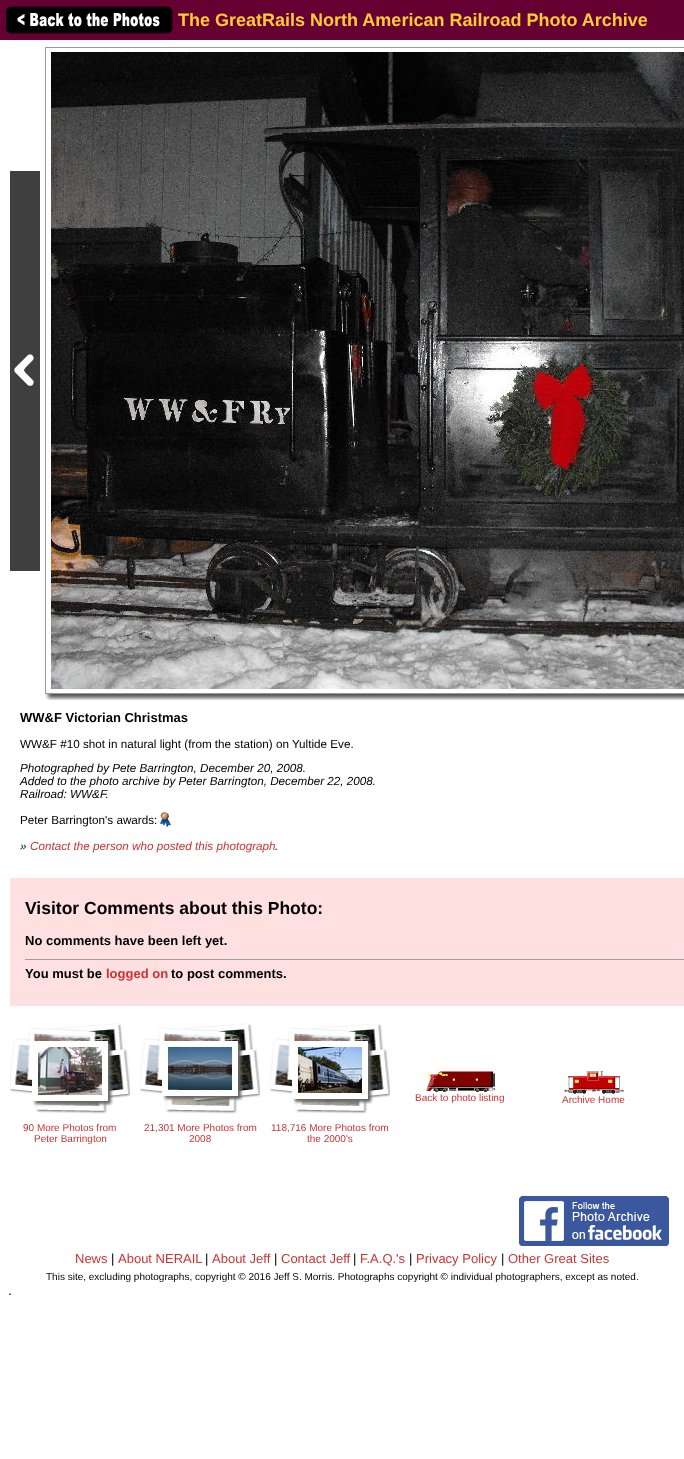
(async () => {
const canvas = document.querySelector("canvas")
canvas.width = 684
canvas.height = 1459
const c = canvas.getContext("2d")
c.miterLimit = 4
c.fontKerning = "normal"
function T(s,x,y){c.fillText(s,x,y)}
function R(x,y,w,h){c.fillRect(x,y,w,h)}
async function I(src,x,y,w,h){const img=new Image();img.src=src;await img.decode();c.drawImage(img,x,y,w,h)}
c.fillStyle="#fff"
R(0,0,684,1459)
c.fillStyle="#603"
R(0,0,684,40)
await I("1.png",6,6,167,28)
c.font="bold 18px Liberation Sans"
c.fillStyle="#fc3"
T("The GreatRails North American Railroad Photo Archive",178,26)
await I("2.png",10,171,30,400)
c.strokeStyle="#9a9a9a"
c.strokeRect(45.5,47.5,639,646)
await I("3.png",51,52,633,637)
await I("4.png",45,694,639,6)
c.font="bold 13px Liberation Sans"
c.fillStyle="#000"
T("WW&F Victorian Christmas",20,722)
c.font="11.7px Liberation Sans"
T("WW&F #10 shot in natural light (from the station) on Yultide Eve.",20,748)
c.font="italic 11.7px Liberation Sans"
T("Photographed by Pete Barrington, December 20, 2008.",20,772)
T("Added to the photo archive by Peter Barrington, December 22, 2008.",20,785)
T("Railroad: WW&F.",20,798)
c.font="11.7px Liberation Sans"
T("Peter Barrington's awards:",20,824)
await I("5.png",160,812,11,15)
c.font="italic 11.7px Liberation Sans"
T("»",20,850)
c.fillStyle="#c33"
T("Contact the person who posted this photograph",30,850)
c.fillStyle="#000"
T(".",275,850)
c.fillStyle="#ffe0e0"
R(10,878,674,128)
c.font="bold 17.5px Liberation Sans"
c.fillStyle="#000"
T("Visitor Comments about this Photo:",25,914)
c.font="bold 13px Liberation Sans"
T("No comments have been left yet.",25,945)
c.fillStyle="#9f9f9f"
R(25,959,659,1)
c.fillStyle="#000"
T("You must be",25,978)
c.fillStyle="#c33"
T("logged on",106,978)
c.fillStyle="#000"
T("to post comments.",171,978)
await I("6.png",426,1071,69,21)
c.font="10px Liberation Sans"
c.fillStyle="#c33"
T("Back to photo listing",415,1101)
await I("7.png",564,1071,60,23)
T("Archive Home",562,1103)
await I("8.png",10,1023,120,91)
c.fillStyle="#666"
c.filter="blur(1.5px)"
c.beginPath()
c.rect(35,1044,76,60)
c.fill()
c.filter="none"
c.fillStyle="#fff"
R(32,1041,76,60)
await I("9.png",38,1047,64,48)
c.fillStyle="#c33"
T("90 More Photos from",23,1131)
T("Peter Barrington",34,1142)
await I("8.png",140,1023,120,91)
c.fillStyle="#666"
c.filter="blur(1.5px)"
c.beginPath()
c.rect(165,1044,76,55)
c.fill()
c.filter="none"
c.fillStyle="#fff"
R(162,1041,76,55)
await I("10.png",168,1047,64,43)
c.fillStyle="#c33"
T("21,301 More Photos from",144,1131)
T("2008",189,1142)
await I("8.png",270,1023,120,91)
c.fillStyle="#666"
c.filter="blur(1.5px)"
c.beginPath()
c.rect(295,1044,76,58)
c.fill()
c.filter="none"
c.fillStyle="#fff"
R(292,1041,76,58)
await I("11.png",298,1047,64,46)
c.fillStyle="#c33"
T("118,716 More Photos from",271,1131)
T("the 2000's",307,1142)
await I("12.png",519,1196,150,50)
c.font="13px Liberation Sans"
T("News",75,1263)
c.fillStyle="#000"
T("|",111,1263)
c.fillStyle="#c33"
T("About NERAIL",118,1263)
c.fillStyle="#000"
T("|",205,1263)
c.fillStyle="#c33"
T("About Jeff",212,1263)
c.fillStyle="#000"
T("|",274,1263)
c.fillStyle="#c33"
T("Contact Jeff",281,1263)
c.fillStyle="#000"
T("|",353,1263)
c.fillStyle="#c33"
T("F.A.Q.'s",360,1263)
c.fillStyle="#000"
T("|",409,1263)
c.fillStyle="#c33"
T("Privacy Policy",416,1263)
c.fillStyle="#000"
T("|",501,1263)
c.fillStyle="#c33"
T("Other Great Sites",508,1263)
c.font="10px Liberation Sans"
c.fillStyle="#000"
T("This site, excluding photographs, copyright © 2016 Jeff S. Morris. Photographs copyright © individual photographers, except as noted.",46,1280)
c.font="14px Liberation Sans"
T(".",8,1295)
})()
